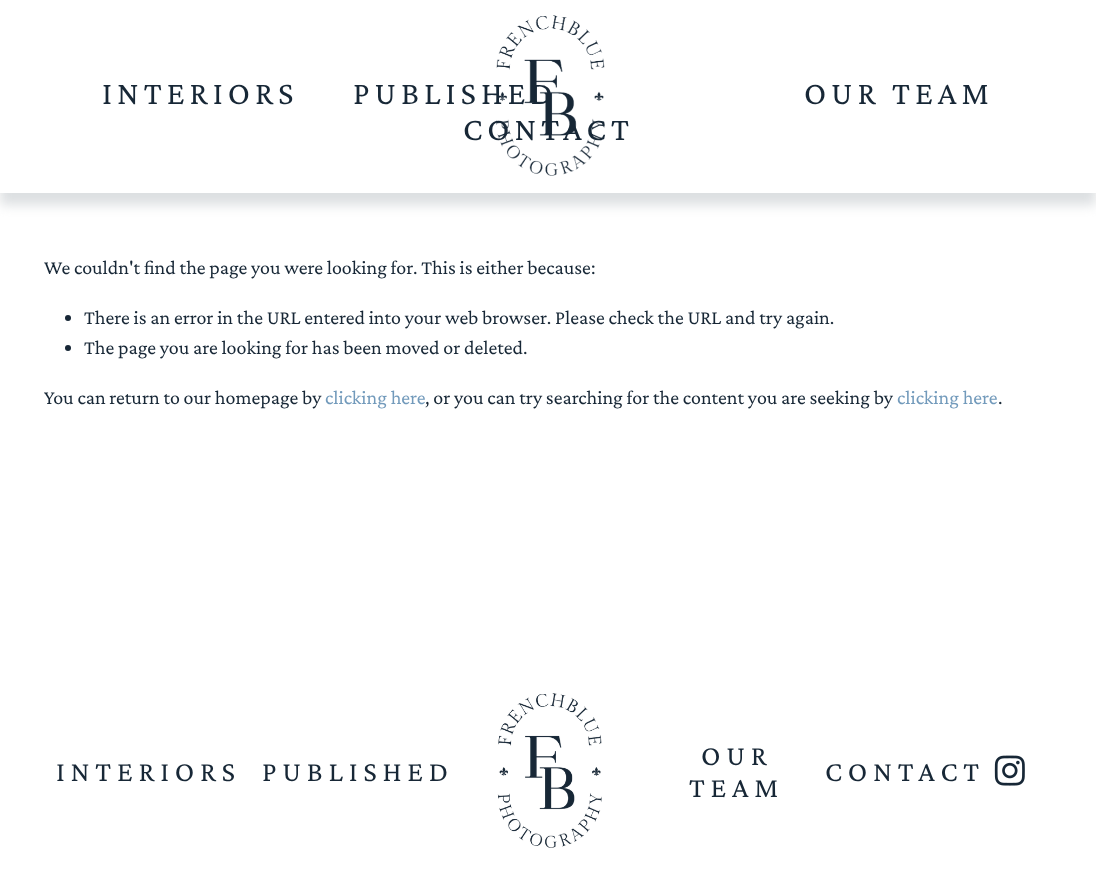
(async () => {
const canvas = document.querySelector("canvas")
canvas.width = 1096
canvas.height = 869
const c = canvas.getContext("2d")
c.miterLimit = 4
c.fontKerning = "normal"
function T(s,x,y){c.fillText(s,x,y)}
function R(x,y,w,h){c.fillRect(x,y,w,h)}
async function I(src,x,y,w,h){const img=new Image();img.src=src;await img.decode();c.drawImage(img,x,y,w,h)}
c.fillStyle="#fff"
R(0,0,1096,869)
c.save()
c.beginPath()
c.rect(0,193,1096,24)
c.clip()
c.fillStyle="#dcdfe1"
c.filter="blur(6px)"
c.beginPath()
c.rect(0,12,1096,193)
c.fill()
c.filter="none"
c.restore()
await I("1.png",496,15,109,161)
c.letterSpacing="5px"
c.font="33px Crimson Pro"
c.fillStyle="#172736"
T("INTERIORS",102,104)
T("PUBLISHED",353,104)
T("OUR TEAM",804,104)
T("CONTACT",463,140)
c.letterSpacing="0px"
c.font="19.95px Crimson Pro"
T("We couldn't find the page you were looking for. This is either because:",44,274)
c.beginPath()
c.arc(68,318,3,0,7)
c.fill()
T("There is an error in the URL entered into your web browser. Please check the URL and try again.",84,324)
c.beginPath()
c.arc(68,348,3,0,7)
c.fill()
T("The page you are looking for has been moved or deleted.",84,354)
T("You can return to our homepage by",44,404)
c.fillStyle="#729abb"
T("clicking here",325,404)
c.fillStyle="#172736"
T(", or you can try searching for the content you are seeking by",425,404)
c.fillStyle="#729abb"
T("clicking here",897,404)
c.fillStyle="#172736"
T(".",998,404)
c.letterSpacing="5.75px"
c.font="29px Crimson Pro"
T("INTERIORS",56,781)
T("PUBLISHED",262,781)
await I("2.png",497,693,105,155)
T("OUR",701,765)
T("TEAM",689,797)
T("CONTACT",825,781)
await I("3.png",994,755,31,31)
})()
